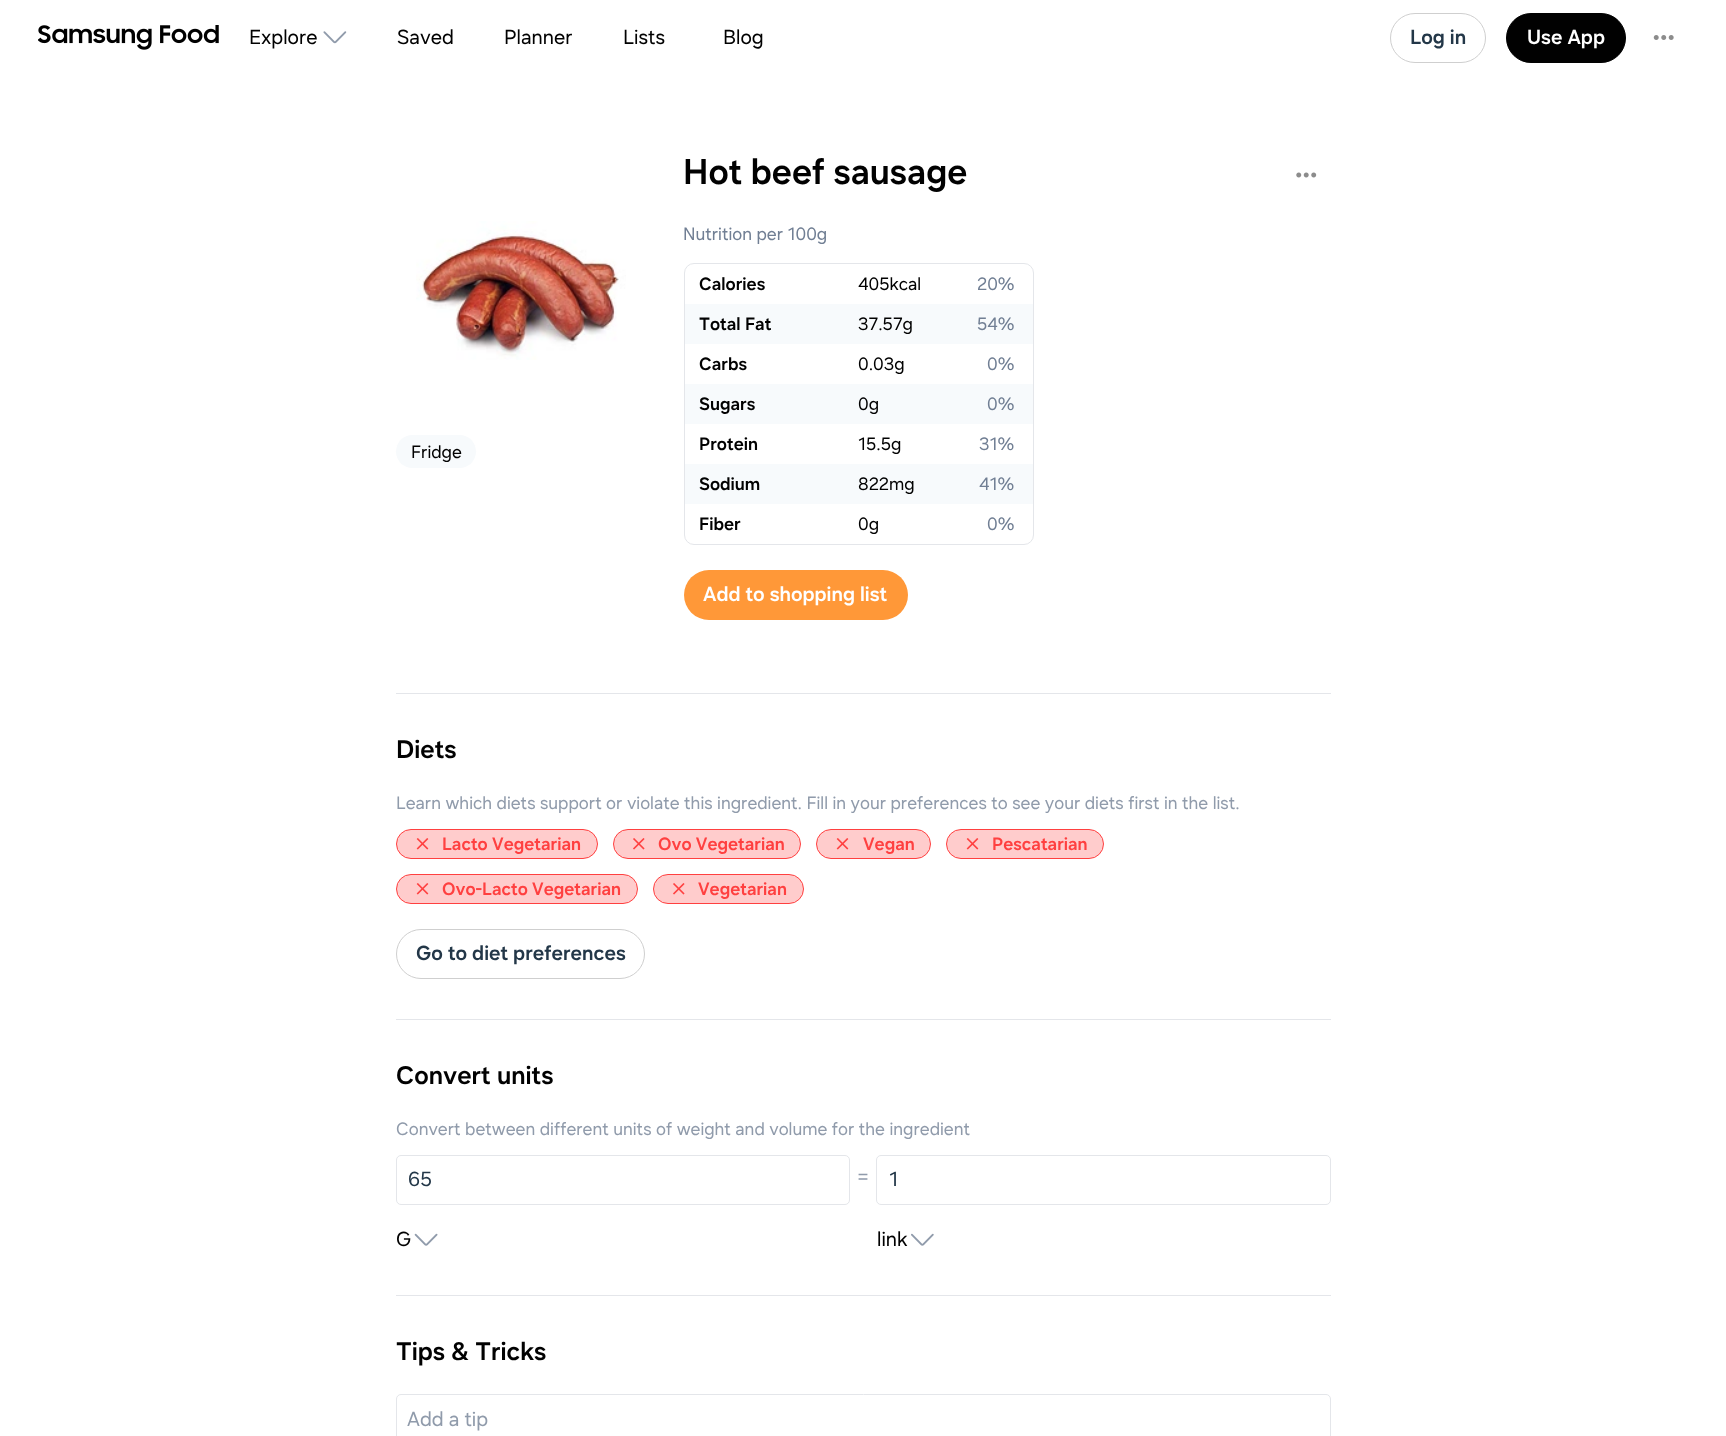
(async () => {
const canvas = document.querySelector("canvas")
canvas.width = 1726
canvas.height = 1436
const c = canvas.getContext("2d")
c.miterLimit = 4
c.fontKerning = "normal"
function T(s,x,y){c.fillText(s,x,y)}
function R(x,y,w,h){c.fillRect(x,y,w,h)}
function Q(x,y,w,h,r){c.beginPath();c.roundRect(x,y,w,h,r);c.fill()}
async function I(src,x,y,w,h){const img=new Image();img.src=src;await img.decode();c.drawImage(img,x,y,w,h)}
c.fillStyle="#fff"
R(0,0,1726,1436)
await I("1.png",38,25,181,25)
c.font="20px 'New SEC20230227'"
c.fillStyle="#010101"
T("Explore",249,44)
await I("2.png",323,31,24,13)
T("Saved",397,44)
T("Planner",504,44)
T("Lists",623,44)
T("Blog",723,44)
c.beginPath()
c.roundRect(1390.5,13.5,95,49,24.5)
c.strokeStyle="#cfcfcf"
c.stroke()
c.font="600 20px 'New SEC20230227'"
c.fillStyle="#233748"
T("Log in",1410,44)
c.fillStyle="#010101"
c.beginPath()
c.roundRect(1506.5,13.5,119,49,24.5)
c.fill()
c.strokeStyle="#010101"
c.stroke()
c.fillStyle="#fff"
T("Use App",1527,44)
await I("3.png",1653,35,21,5)
c.fillStyle="#e4e6ea"
R(396,693,935,1)
await I("4.png",416,221,210,139)
c.fillStyle="#f7fafc"
Q(396,435,80,33,16.5)
c.font="17.5px 'New SEC20230227'"
c.fillStyle="#010101"
T("Fridge",411,458)
c.font="600 35px 'New SEC20230227'"
T("Hot beef sausage",683,184)
await I("5.png",1296,172,21,6)
c.font="17.5px 'New SEC20230227'"
c.fillStyle="#717f94"
T("Nutrition per 100g",683,240)
c.beginPath()
c.roundRect(684.5,263.5,349,281,9.5)
c.strokeStyle="#e4e6ea"
c.stroke()
c.font="600 17.5px 'New SEC20230227'"
c.fillStyle="#010101"
T("Calories",699,290)
c.font="17.5px 'New SEC20230227'"
T("405kcal",858,290)
c.fillStyle="#717f94"
T("20%",977,290)
c.fillStyle="#f7fafc"
R(685,304,348,40)
c.font="600 17.5px 'New SEC20230227'"
c.fillStyle="#010101"
T("Total Fat",699,330)
c.font="17.5px 'New SEC20230227'"
T("37.57g",858,330)
c.fillStyle="#717f94"
T("54%",977,330)
c.font="600 17.5px 'New SEC20230227'"
c.fillStyle="#010101"
T("Carbs",699,370)
c.font="17.5px 'New SEC20230227'"
T("0.03g",858,370)
c.fillStyle="#717f94"
T("0%",987,370)
c.fillStyle="#f7fafc"
R(685,384,348,40)
c.font="600 17.5px 'New SEC20230227'"
c.fillStyle="#010101"
T("Sugars",699,410)
c.font="17.5px 'New SEC20230227'"
T("0g",858,410)
c.fillStyle="#717f94"
T("0%",987,410)
c.font="600 17.5px 'New SEC20230227'"
c.fillStyle="#010101"
T("Protein",699,450)
c.font="17.5px 'New SEC20230227'"
T("15.5g",858,450)
c.fillStyle="#717f94"
T("31%",979,450)
c.fillStyle="#f7fafc"
R(685,464,348,40)
c.font="600 17.5px 'New SEC20230227'"
c.fillStyle="#010101"
T("Sodium",699,490)
c.font="17.5px 'New SEC20230227'"
T("822mg",858,490)
c.fillStyle="#717f94"
T("41%",979,490)
c.font="600 17.5px 'New SEC20230227'"
c.fillStyle="#010101"
T("Fiber",699,530)
c.font="17.5px 'New SEC20230227'"
T("0g",858,530)
c.fillStyle="#717f94"
T("0%",987,530)
c.fillStyle="#ff9838"
Q(684,570,224,50,25)
c.font="600 20px 'New SEC20230227'"
c.fillStyle="#fff"
T("Add to shopping list",703,601)
c.fillStyle="#e4e6ea"
R(396,1019,935,1)
c.font="600 25px 'New SEC20230227'"
c.fillStyle="#010101"
T("Diets",396,758)
c.font="17.5px 'New SEC20230227'"
c.fillStyle="#909bab"
T("Learn which diets support or violate this ingredient. Fill in your preferences to see your diets first in the list.",396,809)
c.fillStyle="#fcc"
c.beginPath()
c.roundRect(396.5,829.5,201,29,14.5)
c.fill()
c.strokeStyle="#ff4040"
c.stroke()
await I("6.png",416,838,13,12)
c.font="600 17.5px 'New SEC20230227'"
c.fillStyle="#ff4040"
T("Lacto Vegetarian",442,850)
c.fillStyle="#fcc"
c.beginPath()
c.roundRect(613.5,829.5,187,29,14.5)
c.fill()
c.stroke()
await I("7.png",633,838,12,12)
c.fillStyle="#ff4040"
T("Ovo Vegetarian",658,850)
c.fillStyle="#fcc"
c.beginPath()
c.roundRect(816.5,829.5,114,29,14.5)
c.fill()
c.stroke()
await I("6.png",836,838,13,12)
c.fillStyle="#ff4040"
T("Vegan",863,850)
c.fillStyle="#fcc"
c.beginPath()
c.roundRect(946.5,829.5,157,29,14.5)
c.fill()
c.stroke()
await I("6.png",966,838,13,12)
c.fillStyle="#ff4040"
T("Pescatarian",992,850)
c.fillStyle="#fcc"
c.beginPath()
c.roundRect(396.5,874.5,241,29,14.5)
c.fill()
c.stroke()
await I("6.png",416,883,13,12)
c.fillStyle="#ff4040"
T("Ovo-Lacto Vegetarian",442,895)
c.fillStyle="#fcc"
c.beginPath()
c.roundRect(653.5,874.5,150,29,14.5)
c.fill()
c.stroke()
await I("7.png",673,883,12,12)
c.fillStyle="#ff4040"
T("Vegetarian",698,895)
c.beginPath()
c.roundRect(396.5,929.5,248,49,24.5)
c.strokeStyle="#cfcfcf"
c.stroke()
c.font="600 20px 'New SEC20230227'"
c.fillStyle="#233748"
T("Go to diet preferences",416,960)
c.fillStyle="#e4e6ea"
R(396,1295,935,1)
c.font="600 25px 'New SEC20230227'"
c.fillStyle="#010101"
T("Convert units",396,1084)
c.font="17.5px 'New SEC20230227'"
c.fillStyle="#909bab"
T("Convert between different units of weight and volume for the ingredient",396,1135)
c.beginPath()
c.roundRect(396.5,1155.5,453,49,4.5)
c.strokeStyle="#e4e6ea"
c.stroke()
c.font="20px 'New SEC20230227'"
c.fillStyle="#233748"
T("65",408,1186)
c.fillStyle="#010101"
T("G",396,1246)
await I("8.png",414,1233,24,13)
c.fillStyle="#909bab"
T("=",857,1184)
c.beginPath()
c.roundRect(876.5,1155.5,454,49,4.5)
c.stroke()
c.fillStyle="#233748"
T("1",889,1186)
c.fillStyle="#010101"
T("link",877,1246)
await I("9.png",911,1233,23,13)
c.font="600 25px 'New SEC20230227'"
T("Tips & Tricks",396,1360)
c.beginPath()
c.roundRect(396.5,1394.5,934,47,4.5)
c.stroke()
c.font="20px 'New SEC20230227'"
c.fillStyle="#909bab"
T("Add a tip",407,1426)
})()
